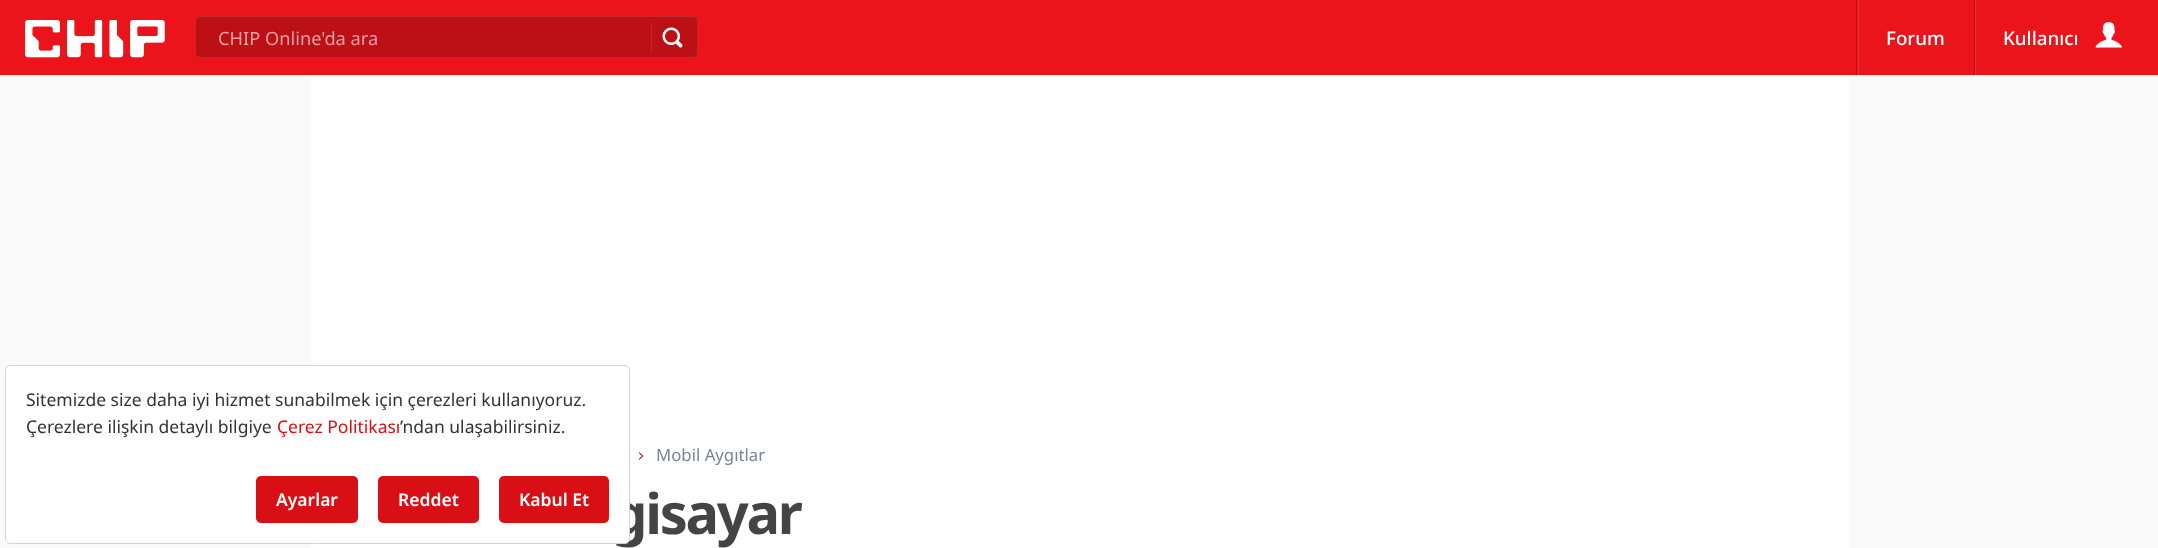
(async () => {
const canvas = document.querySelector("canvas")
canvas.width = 2158
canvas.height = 548
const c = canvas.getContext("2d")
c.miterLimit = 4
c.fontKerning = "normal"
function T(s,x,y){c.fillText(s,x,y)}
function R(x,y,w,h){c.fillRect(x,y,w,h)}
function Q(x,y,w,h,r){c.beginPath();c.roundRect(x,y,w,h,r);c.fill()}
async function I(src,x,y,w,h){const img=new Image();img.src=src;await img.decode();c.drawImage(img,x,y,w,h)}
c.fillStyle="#fafafa"
R(0,0,2158,548)
c.fillStyle="#eb141b"
R(0,0,2158,75)
await I("1.png",25,20,140,38)
c.fillStyle="#bc1016"
Q(195,16,503,42,5)
c.beginPath()
c.roundRect(195.5,16.5,502,41,4.5)
c.strokeStyle="#ffffff1a"
c.stroke()
c.font="18.25px Noto Sans"
c.fillStyle="#e49fa2"
T("CHIP Online'da ara",218,45)
c.fillStyle="#c3282d"
R(651,23,1,30)
await I("2.png",662,27,21,21)
c.fillStyle="#ed2c32"
R(1858,0,1,75)
c.fillStyle="#bc1016"
R(1856,0,1,75)
c.font="500 18.75px Noto Sans"
c.fillStyle="#fff"
T("Forum",1886,45)
c.fillStyle="#ed2c32"
R(1975,0,1,75)
c.fillStyle="#bc1016"
R(1974,0,1,75)
c.fillStyle="#fff"
T("Kullanıcı",2003,45)
await I("3.png",2095,22,27,26)
R(311,75,1538,473)
await I("4.png",638,452,6,8)
c.font="16.75px Noto Sans"
c.fillStyle="#768696"
T("Mobil Aygıtlar",656,461)
c.letterSpacing="-2.25px"
c.font="bold 56px Noto Sans"
c.fillStyle="#444"
T("gisayar",612,534)
c.fillStyle="#fff"
c.beginPath()
c.roundRect(5.5,365.5,624,178,4.5)
c.fill()
c.strokeStyle="#d1d5db"
c.stroke()
c.letterSpacing="0px"
c.font="17.5px Noto Sans"
c.fillStyle="#333"
T("Sitemizde size daha iyi hizmet sunabilmek için çerezleri kullanıyoruz.",26,406)
T("Çerezlere ilişkin detaylı bilgiye",26,433)
c.fillStyle="#d70f12"
T("Çerez Politikası",277,433)
c.fillStyle="#333"
T("’ndan ulaşabilirsiniz.",400,433)
c.fillStyle="#d80f14"
Q(256,476,102,47,5)
c.font="600 17.5px Noto Sans"
c.fillStyle="#fff"
T("Ayarlar",276,506)
c.fillStyle="#d80f14"
Q(378,476,101,47,5)
c.fillStyle="#fff"
T("Reddet",398,506)
c.fillStyle="#d80f14"
Q(499,476,110,47,5)
c.fillStyle="#fff"
T("Kabul Et",519,506)
})()
